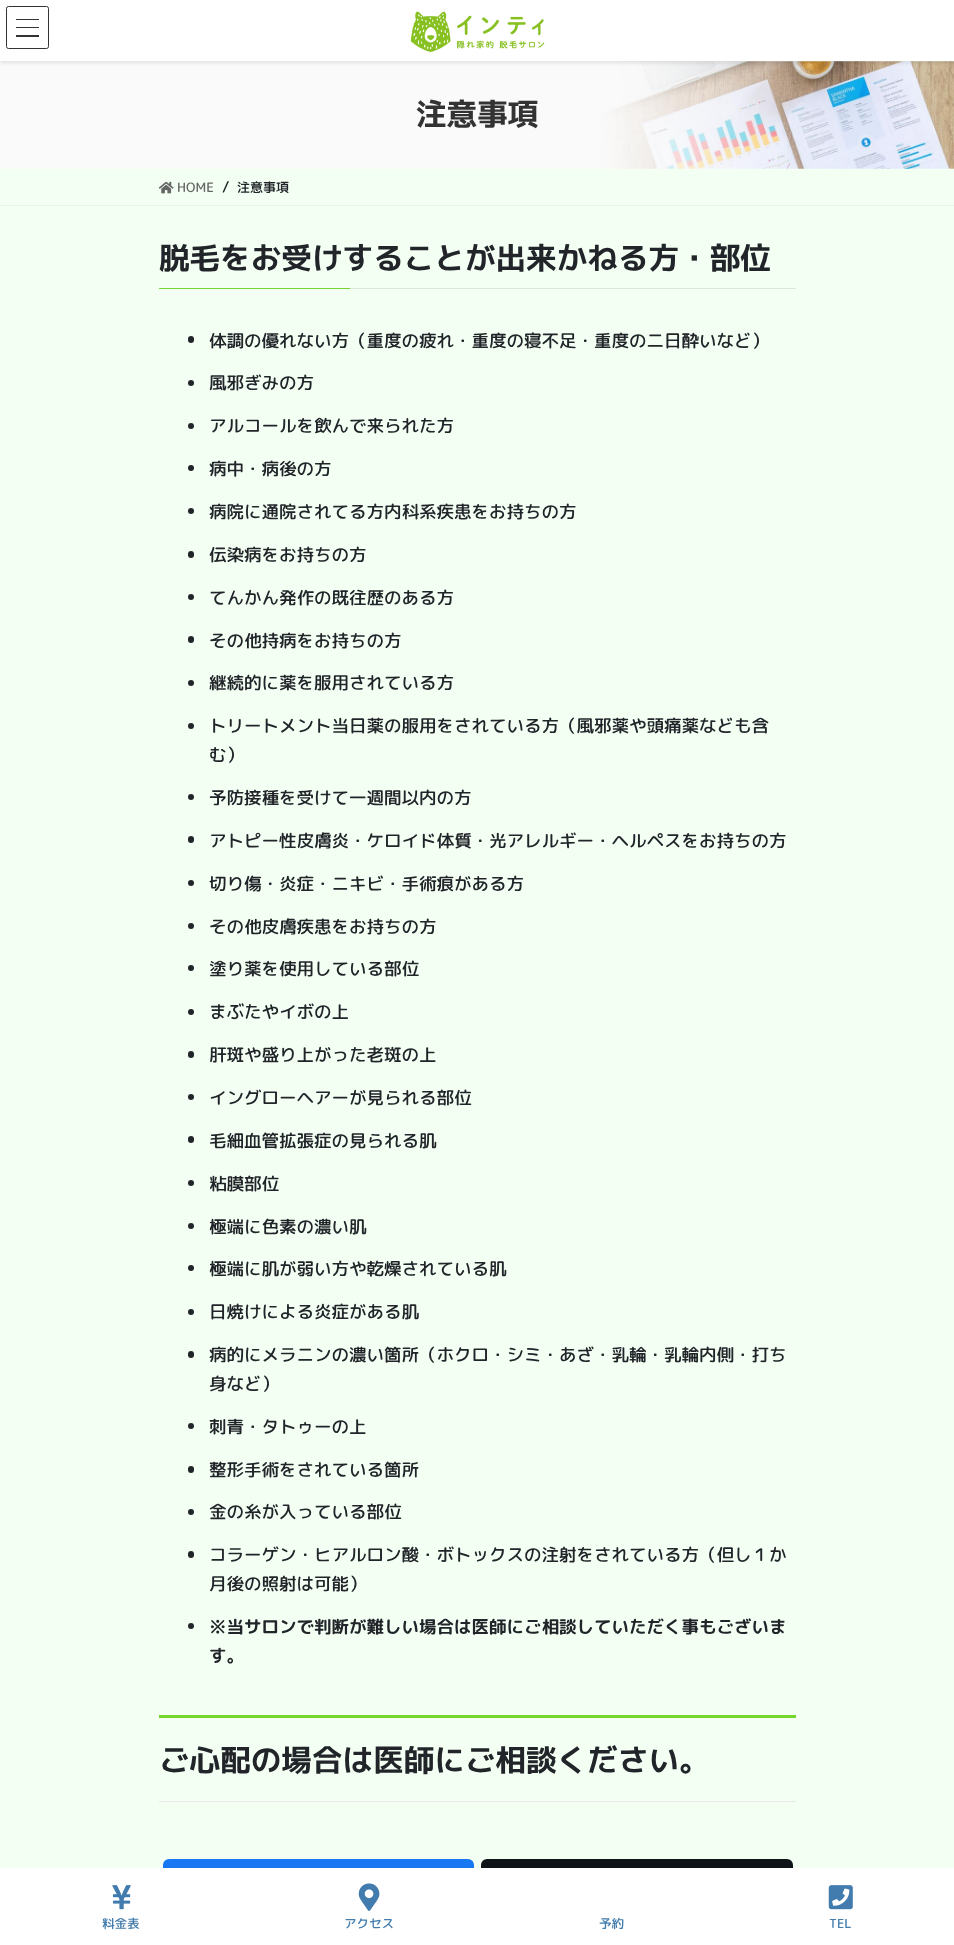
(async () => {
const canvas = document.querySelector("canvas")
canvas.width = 954
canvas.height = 1945
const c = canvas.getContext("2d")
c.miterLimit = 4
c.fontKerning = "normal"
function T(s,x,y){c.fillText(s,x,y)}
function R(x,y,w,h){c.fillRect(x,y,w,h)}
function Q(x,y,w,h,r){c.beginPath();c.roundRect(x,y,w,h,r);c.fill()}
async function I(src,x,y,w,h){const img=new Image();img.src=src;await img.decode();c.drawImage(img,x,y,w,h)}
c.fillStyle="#f4fff4"
R(0,0,954,1945)
await I("2.png",0,61,954,108)
c.fillStyle="#0000001a"
c.filter="blur(2px)"
c.beginPath()
c.rect(0,1,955,62)
c.fill()
c.filter="none"
c.fillStyle="#fff"
R(0,0,954,61)
await I("1.png",410,11,135,41)
c.fillStyle="#333"
R(16,19,23,1)
R(16,27,23,1)
R(16,35,23,2)
c.beginPath()
c.roundRect(6.5,6.5,42,42,2)
c.strokeStyle="#333"
c.stroke()
c.font="bold 30.6px 'M PLUS 1p'"
T("注意事項",416,125)
c.fillStyle="#e8f2e8"
R(0,205,954,1)
await I("3.png",158,181,16,13)
c.font="500 13px 'Rounded Mplus 1c'"
c.fillStyle="#666"
T("HOME",177,192)
c.font="500 15px 'Rounded Mplus 1c'"
c.fillStyle="#212529"
T("/",222,192)
c.font="500 13px 'Rounded Mplus 1c'"
T("注意事項",237,192)
c.fillStyle="#dce6dc"
R(350,288,446,1)
c.font="bold 30.6px 'M PLUS 1p'"
c.fillStyle="#212529"
T("脱毛をお受けすることが出来かねる方・部位",159,269)
c.fillStyle="#74d62f"
R(159,288,191,1)
c.fillStyle="#212529"
Q(188,336,6,7,3)
c.font="500 17.5px 'Rounded Mplus 1c'"
T("体調の優れない方（重度の疲れ・重度の寝不足・重度の二日酔いなど）",209,347)
c.beginPath()
c.arc(191,383,3,0,7)
c.fill()
T("風邪ぎみの方",209,389)
c.beginPath()
c.arc(191,426,3,0,7)
c.fill()
T("アルコールを飲んで来られた方",209,432)
c.beginPath()
c.arc(191,468,3,0,7)
c.fill()
T("病中・病後の方",209,475)
c.beginPath()
c.arc(191,511,3,0,7)
c.fill()
T("病院に通院されてる方内科系疾患をお持ちの方",209,518)
Q(188,551,6,7,3)
T("伝染病をお持ちの方",209,561)
c.beginPath()
c.arc(191,597,3,0,7)
c.fill()
T("てんかん発作の既往歴のある方",209,604)
Q(188,636,6,7,3)
T("その他持病をお持ちの方",209,647)
c.beginPath()
c.arc(191,683,3,0,7)
c.fill()
T("継続的に薬を服用されている方",209,689)
c.beginPath()
c.arc(191,726,3,0,7)
c.fill()
T("トリートメント当日薬の服用をされている方（風邪薬や頭痛薬なども含",209,732)
T("む）",209,761)
c.beginPath()
c.arc(191,797,3,0,7)
c.fill()
T("予防接種を受けて一週間以内の方",209,804)
Q(188,836,6,7,3)
T("アトピー性皮膚炎・ケロイド体質・光アレルギー・ヘルペスをお持ちの方",209,847)
c.beginPath()
c.arc(191,883,3,0,7)
c.fill()
T("切り傷・炎症・ニキビ・手術痕がある方",209,890)
c.beginPath()
c.arc(191,926,3,0,7)
c.fill()
T("その他皮膚疾患をお持ちの方",209,933)
c.beginPath()
c.arc(191,968,3,0,7)
c.fill()
T("塗り薬を使用している部位",209,975)
c.beginPath()
c.arc(191,1012,3,0,7)
c.fill()
T("まぶたやイボの上",209,1018)
Q(188,1051,6,7,3)
T("肝斑や盛り上がった老斑の上",209,1061)
c.beginPath()
c.arc(191,1097,3,0,7)
c.fill()
T("イングローヘアーが見られる部位",209,1104)
Q(188,1136,6,7,3)
T("毛細血管拡張症の見られる肌",209,1147)
c.beginPath()
c.arc(191,1183,3,0,7)
c.fill()
T("粘膜部位",209,1190)
c.beginPath()
c.arc(191,1226,3,0,7)
c.fill()
T("極端に色素の濃い肌",209,1233)
c.beginPath()
c.arc(191,1268,3,0,7)
c.fill()
T("極端に肌が弱い方や乾燥されている肌",209,1275)
c.beginPath()
c.arc(191,1312,3,0,7)
c.fill()
T("日焼けによる炎症がある肌",209,1318)
Q(188,1351,6,7,3)
T("病的にメラニンの濃い箇所（ホクロ・シミ・あざ・乳輪・乳輪内側・打ち",209,1361)
T("身など）",209,1390)
c.beginPath()
c.arc(191,1426,3,0,7)
c.fill()
T("刺青・タトゥーの上",209,1433)
Q(188,1466,6,7,3)
T("整形手術をされている箇所",209,1476)
c.beginPath()
c.arc(191,1512,3,0,7)
c.fill()
T("金の糸が入っている部位",209,1518)
Q(188,1551,6,7,3)
T("コラーゲン・ヒアルロン酸・ボトックスの注射をされている方（但し１か",209,1561)
T("月後の照射は可能）",209,1590)
c.beginPath()
c.arc(191,1626,3,0,7)
c.fill()
c.font="bold 17.5px 'Rounded Mplus 1c Bold'"
T("※当サロンで判断が難しい場合は医師にご相談していただく事もございま",209,1633)
T("す。",209,1662)
c.fillStyle="#74d62f"
R(159,1715,637,3)
c.fillStyle="#e9e9e9"
R(159,1801,637,1)
c.font="bold 30.6px 'M PLUS 1p'"
c.fillStyle="#212529"
T("ご心配の場合は医師にご相談ください。",159,1771)
c.fillStyle="#1877f2"
Q(163,1859,311,40,6)
c.fillStyle="#0f1419"
Q(481,1859,312,40,6)
c.fillStyle="#fff"
R(0,1868,954,77)
await I("4.png",112,1885,19,25)
c.font="500 12.5px 'Rounded Mplus 1c'"
c.fillStyle="#437cad"
T("料金表",102,1928)
await I("5.png",358,1883,22,28)
T("アクセス",344,1928)
T("予約",599,1928)
await I("6.png",828,1885,25,25)
T("TEL",829,1928)
})()
